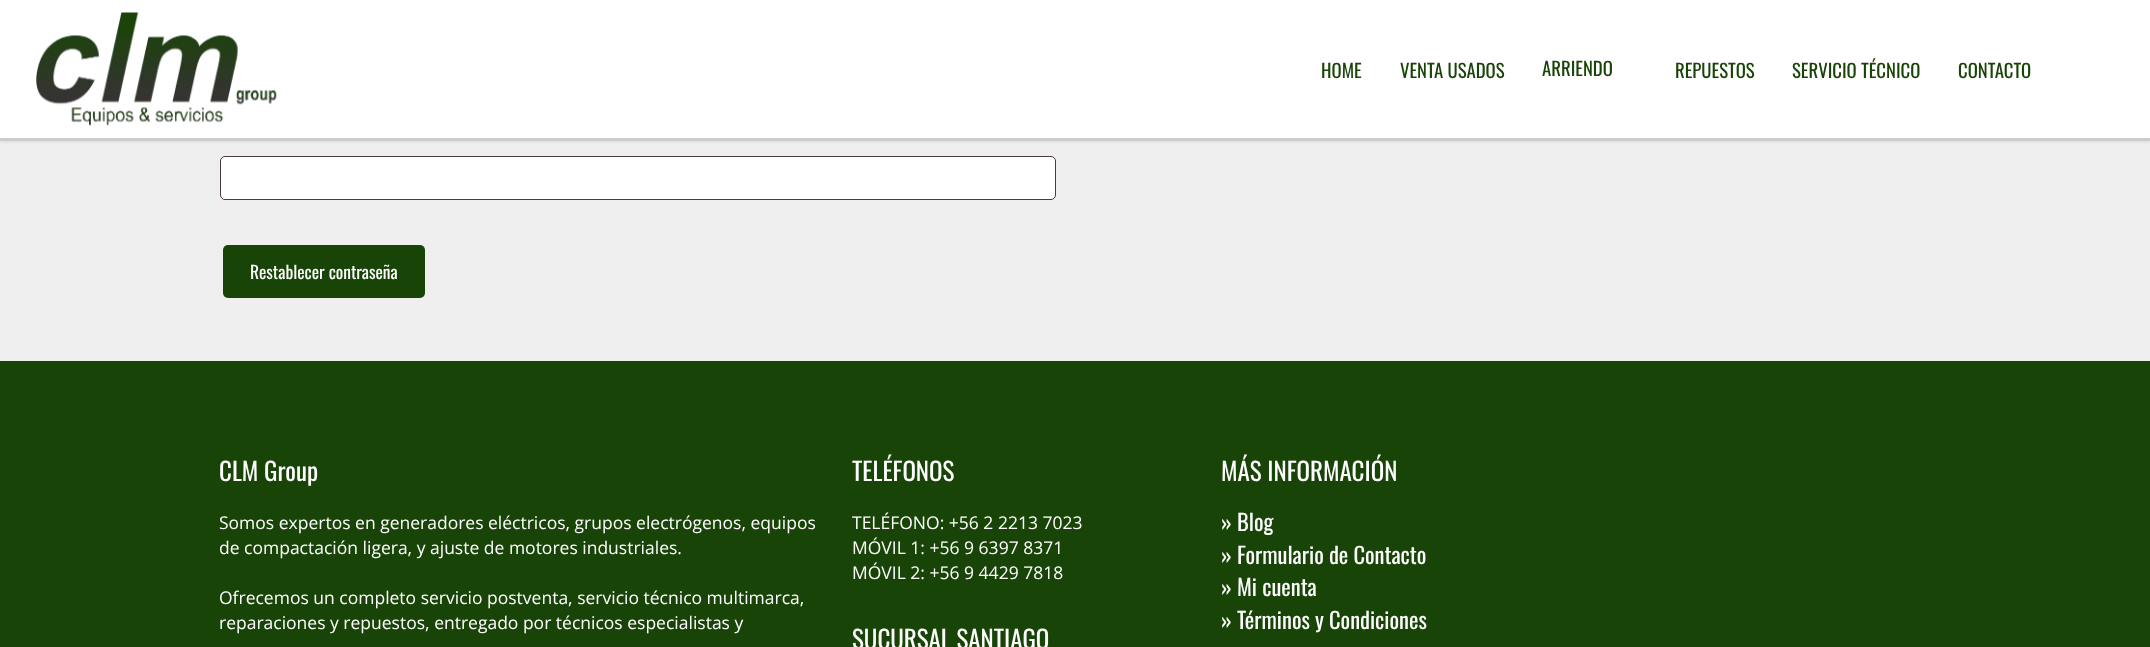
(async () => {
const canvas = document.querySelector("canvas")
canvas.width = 2150
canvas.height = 647
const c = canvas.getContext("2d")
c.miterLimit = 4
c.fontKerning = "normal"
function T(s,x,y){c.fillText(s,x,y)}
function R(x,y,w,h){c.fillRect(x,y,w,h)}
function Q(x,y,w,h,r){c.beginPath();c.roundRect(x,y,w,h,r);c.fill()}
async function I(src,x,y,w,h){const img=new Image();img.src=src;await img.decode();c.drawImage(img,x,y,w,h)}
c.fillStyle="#efefef"
R(0,0,2150,647)
c.fillStyle="#00000038"
c.filter="blur(2px)"
c.beginPath()
c.rect(0,-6,2150,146)
c.fill()
c.filter="none"
c.fillStyle="#fff"
R(0,0,2150,138)
c.fillStyle="#ccc"
R(0,138,2150,3)
await I("1.png",36,12,241,114)
c.font="18.75px Oswald"
c.fillStyle="#194408"
T("HOME",1321,78)
T("VENTA USADOS",1400,78)
T("ARRIENDO",1542,76)
T("REPUESTOS",1675,78)
T("SERVICIO TÉCNICO",1792,78)
T("CONTACTO",1958,78)
c.fillStyle="#fff"
Q(220,156,836,44,5)
c.beginPath()
c.roundRect(220.5,156.5,835,43,4.5)
c.strokeStyle="#200707cc"
c.stroke()
c.fillStyle="#194408"
Q(223,245,202,53,5)
c.font="17.5px Oswald"
c.fillStyle="#fff"
T("Restablecer contraseña",250,279)
c.fillStyle="#194408"
R(0,361,2150,286)
c.font="25px Oswald"
c.fillStyle="#fff"
T("CLM Group",219,481)
c.font="17.5px Open Sans"
T("Somos expertos en generadores eléctricos, grupos electrógenos, equipos",219,529)
T("de compactación ligera, y ajuste de motores industriales.",219,554)
T("Ofrecemos un completo servicio postventa, servicio técnico multimarca,",219,604)
T("reparaciones y repuestos, entregado por técnicos especialistas y",219,629)
c.font="25px Oswald"
T("TELÉFONOS",852,481)
c.font="17.5px Open Sans"
T("TELÉFONO: +56 2 2213 7023",852,529)
T("MÓVIL 1: +56 9 6397 8371",852,554)
T("MÓVIL 2: +56 9 4429 7818",852,579)
c.font="25px Oswald"
T("SUCURSAL SANTIAGO",852,649)
T("MÁS INFORMACIÓN",1221,481)
c.font="22.5px Oswald"
T("» Blog",1221,531)
T("» Formulario de Contacto",1221,564)
T("» Mi cuenta",1221,596)
T("» Términos y Condiciones",1221,629)
})()
